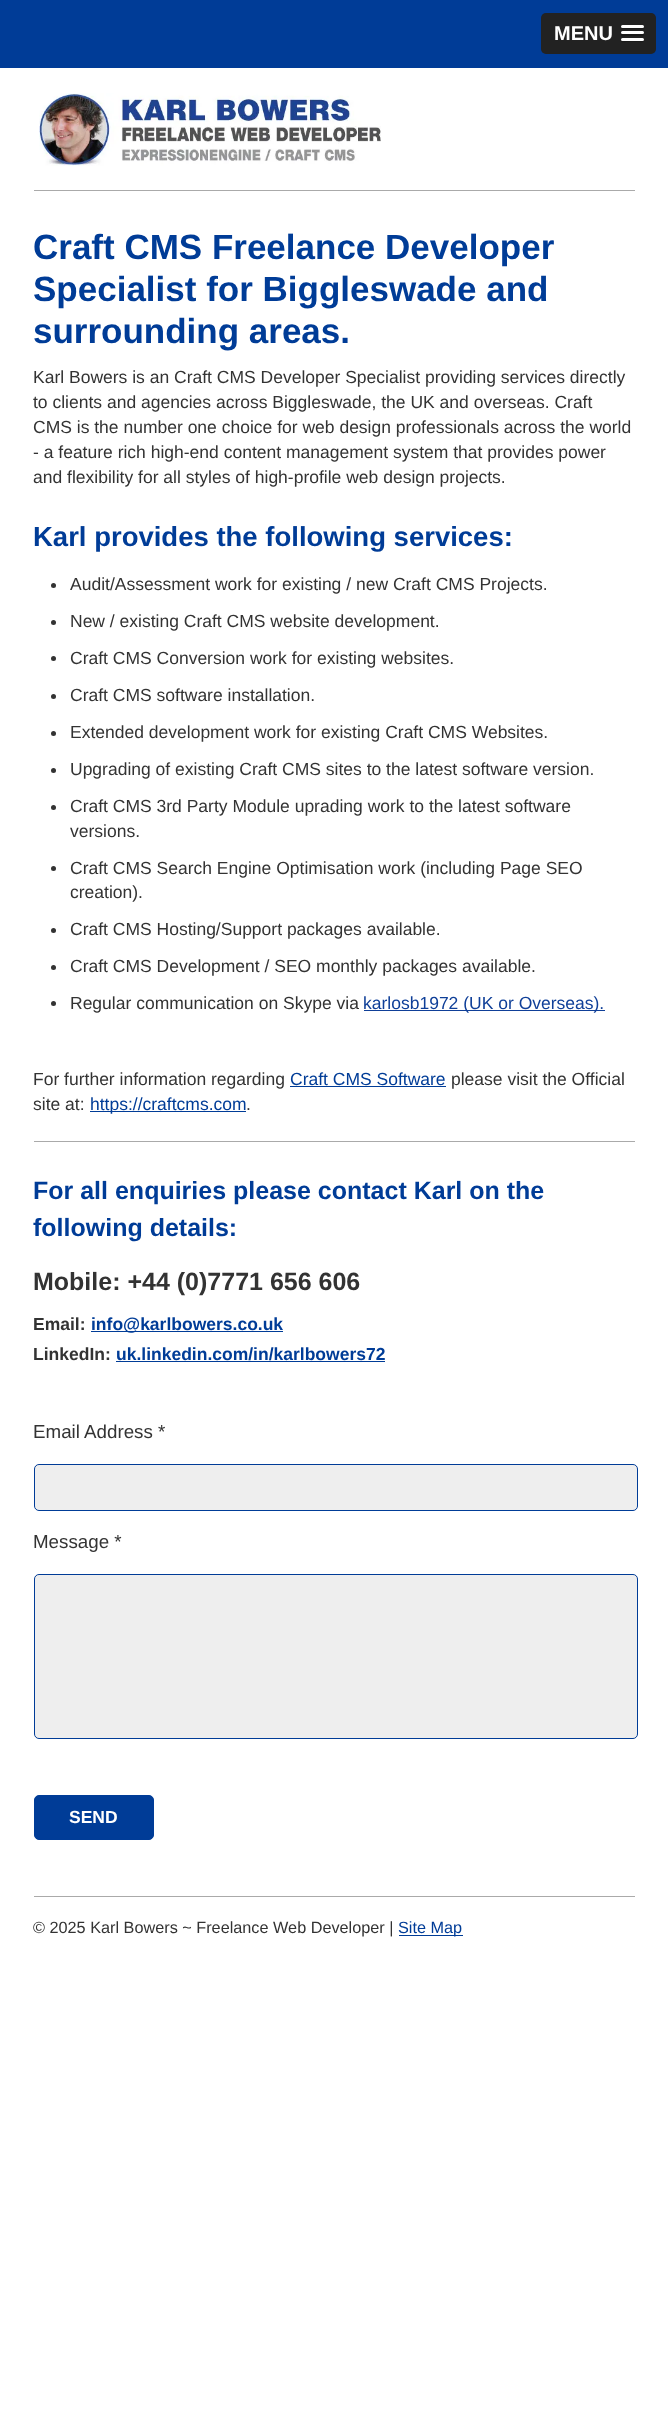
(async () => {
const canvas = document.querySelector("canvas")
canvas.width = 668
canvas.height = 2412
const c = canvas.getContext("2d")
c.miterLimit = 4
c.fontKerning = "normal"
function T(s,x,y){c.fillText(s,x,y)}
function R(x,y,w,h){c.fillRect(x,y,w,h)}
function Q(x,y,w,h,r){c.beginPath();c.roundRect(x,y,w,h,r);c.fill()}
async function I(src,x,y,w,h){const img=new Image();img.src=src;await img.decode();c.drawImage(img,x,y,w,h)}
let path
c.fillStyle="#fff"
R(0,0,668,2412)
c.fillStyle="#003c97"
R(0,0,668,68)
c.fillStyle="#222"
Q(541,13,115,41,5)
c.font="bold 20px Liberation Sans"
c.fillStyle="#fff"
T("MENU",554,40)
c.fillStyle="#1a1a1a"
path = new Path2D("M621.5 26.5c-2.5 3 4 2.5 4.5 2.5h13c.5 0 7 .5 4.5-2.5c0 .5-.5 1-1 1h-20c-.5 0-1-.5-1-1z")
c.fill(path)
c.fillStyle="#fff"
Q(621,25,23,3,1.5)
c.fillStyle="#1a1a1a"
path = new Path2D("M621.5 33.5c-.5 0-.5 1-.5 1.5c.5 2 4 1 5 1h17c1-.5 1.5-2 .5-2.5c-1 .5-21 .5-22 0z")
c.fill(path)
c.fillStyle="#fff"
Q(621,31,23,3,1.5)
c.fillStyle="#1a1a1a"
path = new Path2D("M621.5 39.5l-.5 1.5c.5 2 4 1 5 1h13c1 0 4.5 1 5-1l-.5-1.5l-1 .5h-20z")
c.fill(path)
c.fillStyle="#fff"
Q(621,38,23,3,1.5)
await I("1.png",39,93,342,73)
c.fillStyle="#aaa"
R(34,190,601,1)
c.font="bold 35px Liberation Sans"
c.fillStyle="#003c97"
T("Craft CMS Freelance Developer",33,259)
T("Specialist for Biggleswade and",33,301)
T("surrounding areas.",33,343)
c.font="17.5px Liberation Sans"
c.fillStyle="#333"
T("Karl Bowers is an Craft CMS Developer Specialist providing services directly",33,383)
T("to clients and agencies across Biggleswade, the UK and overseas. Craft",33,408)
T("CMS is the number one choice for web design professionals across the world",33,433)
T("- a feature rich high-end content management system that provides power",33,458)
T("and flexibility for all styles of high-profile web design projects.",33,483)
c.font="bold 27.5px Liberation Sans"
c.fillStyle="#003c97"
T("Karl provides the following services:",33,546)
c.fillStyle="#333"
c.beginPath()
c.arc(53.5,585.5,2.5,0,7)
c.fill()
c.font="17.5px Liberation Sans"
T("Audit/Assessment work for existing / new Craft CMS Projects.",70,590)
c.beginPath()
c.arc(53.5,622.5,2.5,0,7)
c.fill()
T("New / existing Craft CMS website development.",70,627)
c.beginPath()
c.arc(53.5,658.5,2.5,0,7)
c.fill()
T("Craft CMS Conversion work for existing websites.",70,664)
c.beginPath()
c.arc(53.5,696.5,2.5,0,7)
c.fill()
T("Craft CMS software installation.",70,701)
c.beginPath()
c.arc(53.5,733.5,2.5,0,7)
c.fill()
T("Extended development work for existing Craft CMS Websites.",70,738)
c.beginPath()
c.arc(53.5,770.5,2.5,0,7)
c.fill()
T("Upgrading of existing Craft CMS sites to the latest software version.",70,775)
c.beginPath()
c.arc(53.5,807.5,2.5,0,7)
c.fill()
T("Craft CMS 3rd Party Module uprading work to the latest software",70,812)
T("versions.",70,837)
c.beginPath()
c.arc(53.5,868.5,2.5,0,7)
c.fill()
T("Craft CMS Search Engine Optimisation work (including Page SEO",70,874)
T("creation).",70,898)
c.beginPath()
c.arc(53.5,930.5,2.5,0,7)
c.fill()
T("Craft CMS Hosting/Support packages available.",70,935)
c.beginPath()
c.arc(53.5,967.5,2.5,0,7)
c.fill()
T("Craft CMS Development / SEO monthly packages available.",70,972)
c.beginPath()
c.arc(53.5,1003.5,2.5,0,7)
c.fill()
T("Regular communication on Skype via",70,1009)
c.fillStyle="#0f3f98"
R(364,1010,241,1)
T("karlosb1972 (UK or Overseas).",363,1009)
c.fillStyle="#333"
T("For further information regarding",33,1085)
c.fillStyle="#003c97"
T("Craft CMS Software",290,1085)
R(290,1086,156,1)
c.fillStyle="#333"
T("please visit the Official",451,1085)
T("site at:",33,1110)
c.fillStyle="#003c97"
R(90,1111,156,1)
T("https://craftcms.com",90,1110)
c.fillStyle="#333"
T(".",246,1110)
c.fillStyle="#aaa"
R(34,1141,601,1)
c.font="bold 25px Liberation Sans"
c.fillStyle="#003c97"
T("For all enquiries please contact Karl on the",33,1199)
T("following details:",33,1236)
c.fillStyle="#333"
T("Mobile: +44 (0)7771 656 606",33,1290)
c.font="bold 17.5px Liberation Sans"
T("Email:",33,1330)
c.fillStyle="#003c97"
R(91,1331,192,1)
T("info@karlbowers.co.uk",91,1330)
c.fillStyle="#333"
T("LinkedIn:",33,1360)
c.fillStyle="#003c97"
T("uk.linkedin.com/in/karlbowers72",116,1360)
R(116,1361,269,1)
c.font="18.75px Liberation Sans"
c.fillStyle="#333"
T("Email Address *",33,1438)
c.fillStyle="#eee"
c.beginPath()
c.roundRect(34.5,1464.5,603,46,4.5)
c.fill()
c.strokeStyle="#003c97"
c.stroke()
c.fillStyle="#333"
T("Message *",33,1548)
c.fillStyle="#eee"
c.beginPath()
c.roundRect(34.5,1574.5,603,164,4.5)
c.fill()
c.stroke()
c.fillStyle="#003c97"
c.beginPath()
c.roundRect(34.5,1795.5,119,44,4.5)
c.fill()
c.stroke()
c.font="bold 17.5px Liberation Sans"
c.fillStyle="#fff"
T("SEND",69,1823)
c.fillStyle="#aaa"
R(34,1896,601,1)
c.font="16.25px Liberation Sans"
c.fillStyle="#333"
T("© 2025 Karl Bowers ~ Freelance Web Developer |",33,1933)
c.fillStyle="#003c97"
R(399,1935,64,1)
T("Site Map",398,1933)
})()
